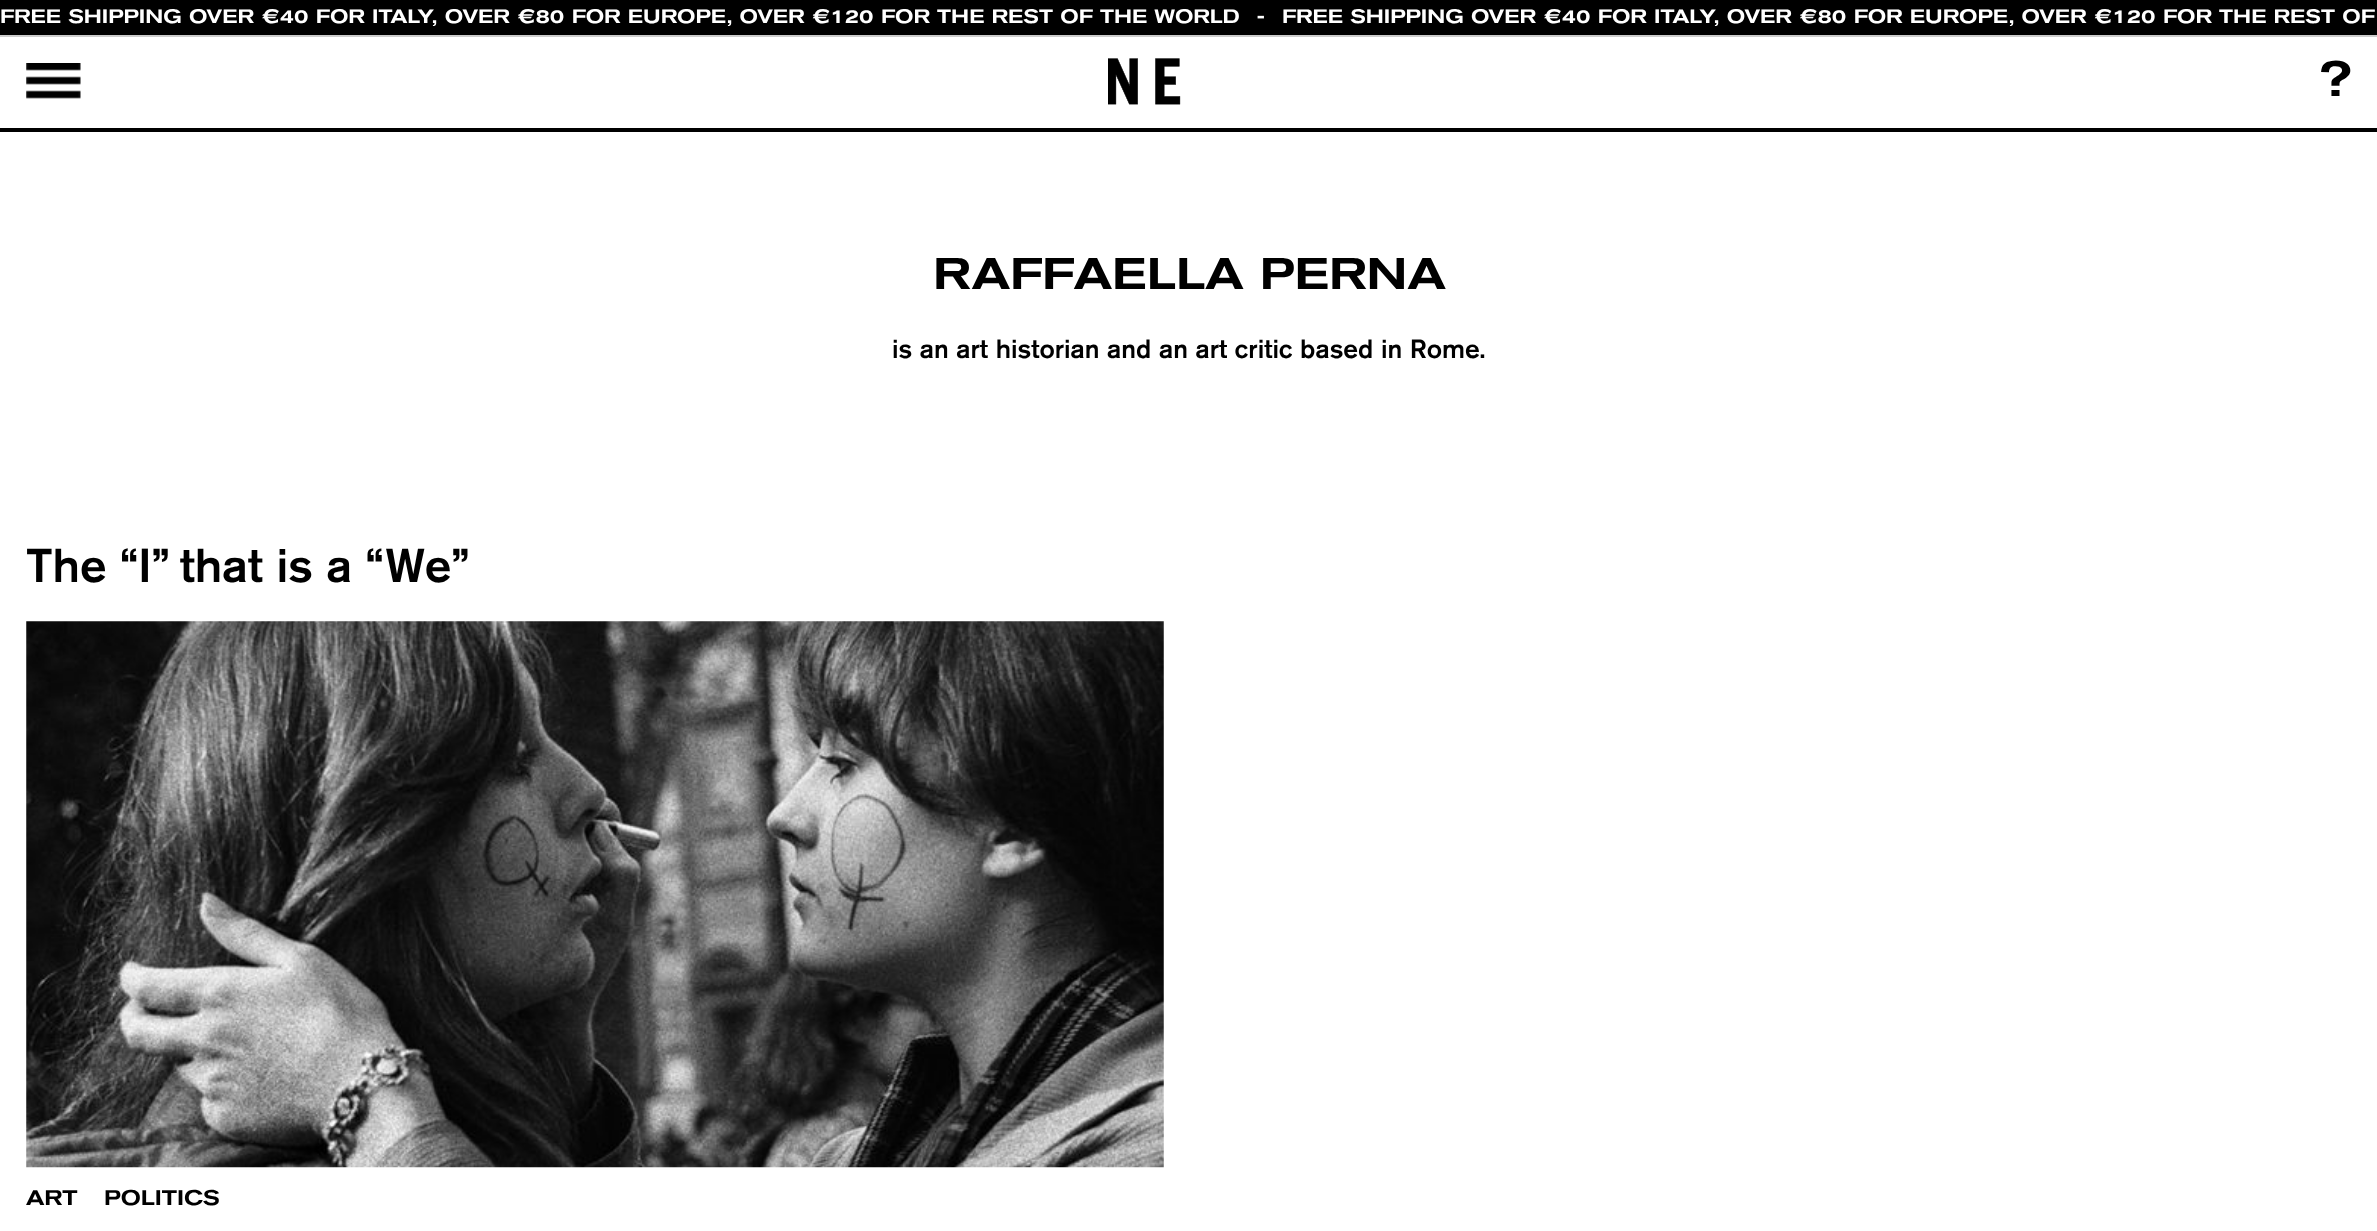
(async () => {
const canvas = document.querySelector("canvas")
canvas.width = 2377
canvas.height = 1231
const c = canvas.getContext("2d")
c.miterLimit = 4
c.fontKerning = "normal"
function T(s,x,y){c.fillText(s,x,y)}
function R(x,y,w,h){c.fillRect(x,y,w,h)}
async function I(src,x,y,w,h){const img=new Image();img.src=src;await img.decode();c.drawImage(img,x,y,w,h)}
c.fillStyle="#fff"
R(0,0,2377,1231)
c.fillStyle="#000"
R(0,128,2377,4)
R(0,0,2377,35)
c.fillStyle="#ccc"
R(0,35,2377,2)
c.font="500 19.25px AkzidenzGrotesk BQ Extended"
c.fillStyle="#fff"
T("FREE SHIPPING OVER €40 FOR ITALY, OVER €80 FOR EUROPE, OVER €120 FOR THE REST OF THE WORLD",0,23)
T("-",1257,23)
T("FREE SHIPPING OVER €40 FOR ITALY, OVER €80 FOR EUROPE, OVER €120 FOR THE REST OF",1282,23)
await I("1.png",26,63,55,36)
await I("2.png",1108,58,73,47)
c.font="500 49px AkzidenzGrotesk BQ Extended"
c.fillStyle="#000"
T("?",2318,96)
c.font="500 43.75px AkzidenzGrotesk BQ Extended"
T("RAFFAELLA PERNA",933,289)
c.font="500 26.25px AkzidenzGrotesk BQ"
T("is an art historian and an art critic based in Rome.",892,358)
c.font="500 47.25px AkzidenzGrotesk BQ"
T("The “I” that is a “We”",26,582)
await I("3.png",26,621,1138,547)
c.font="500 21px AkzidenzGrotesk BQ Extended"
T("ART",26,1205)
T("POLITICS",104,1205)
})()
